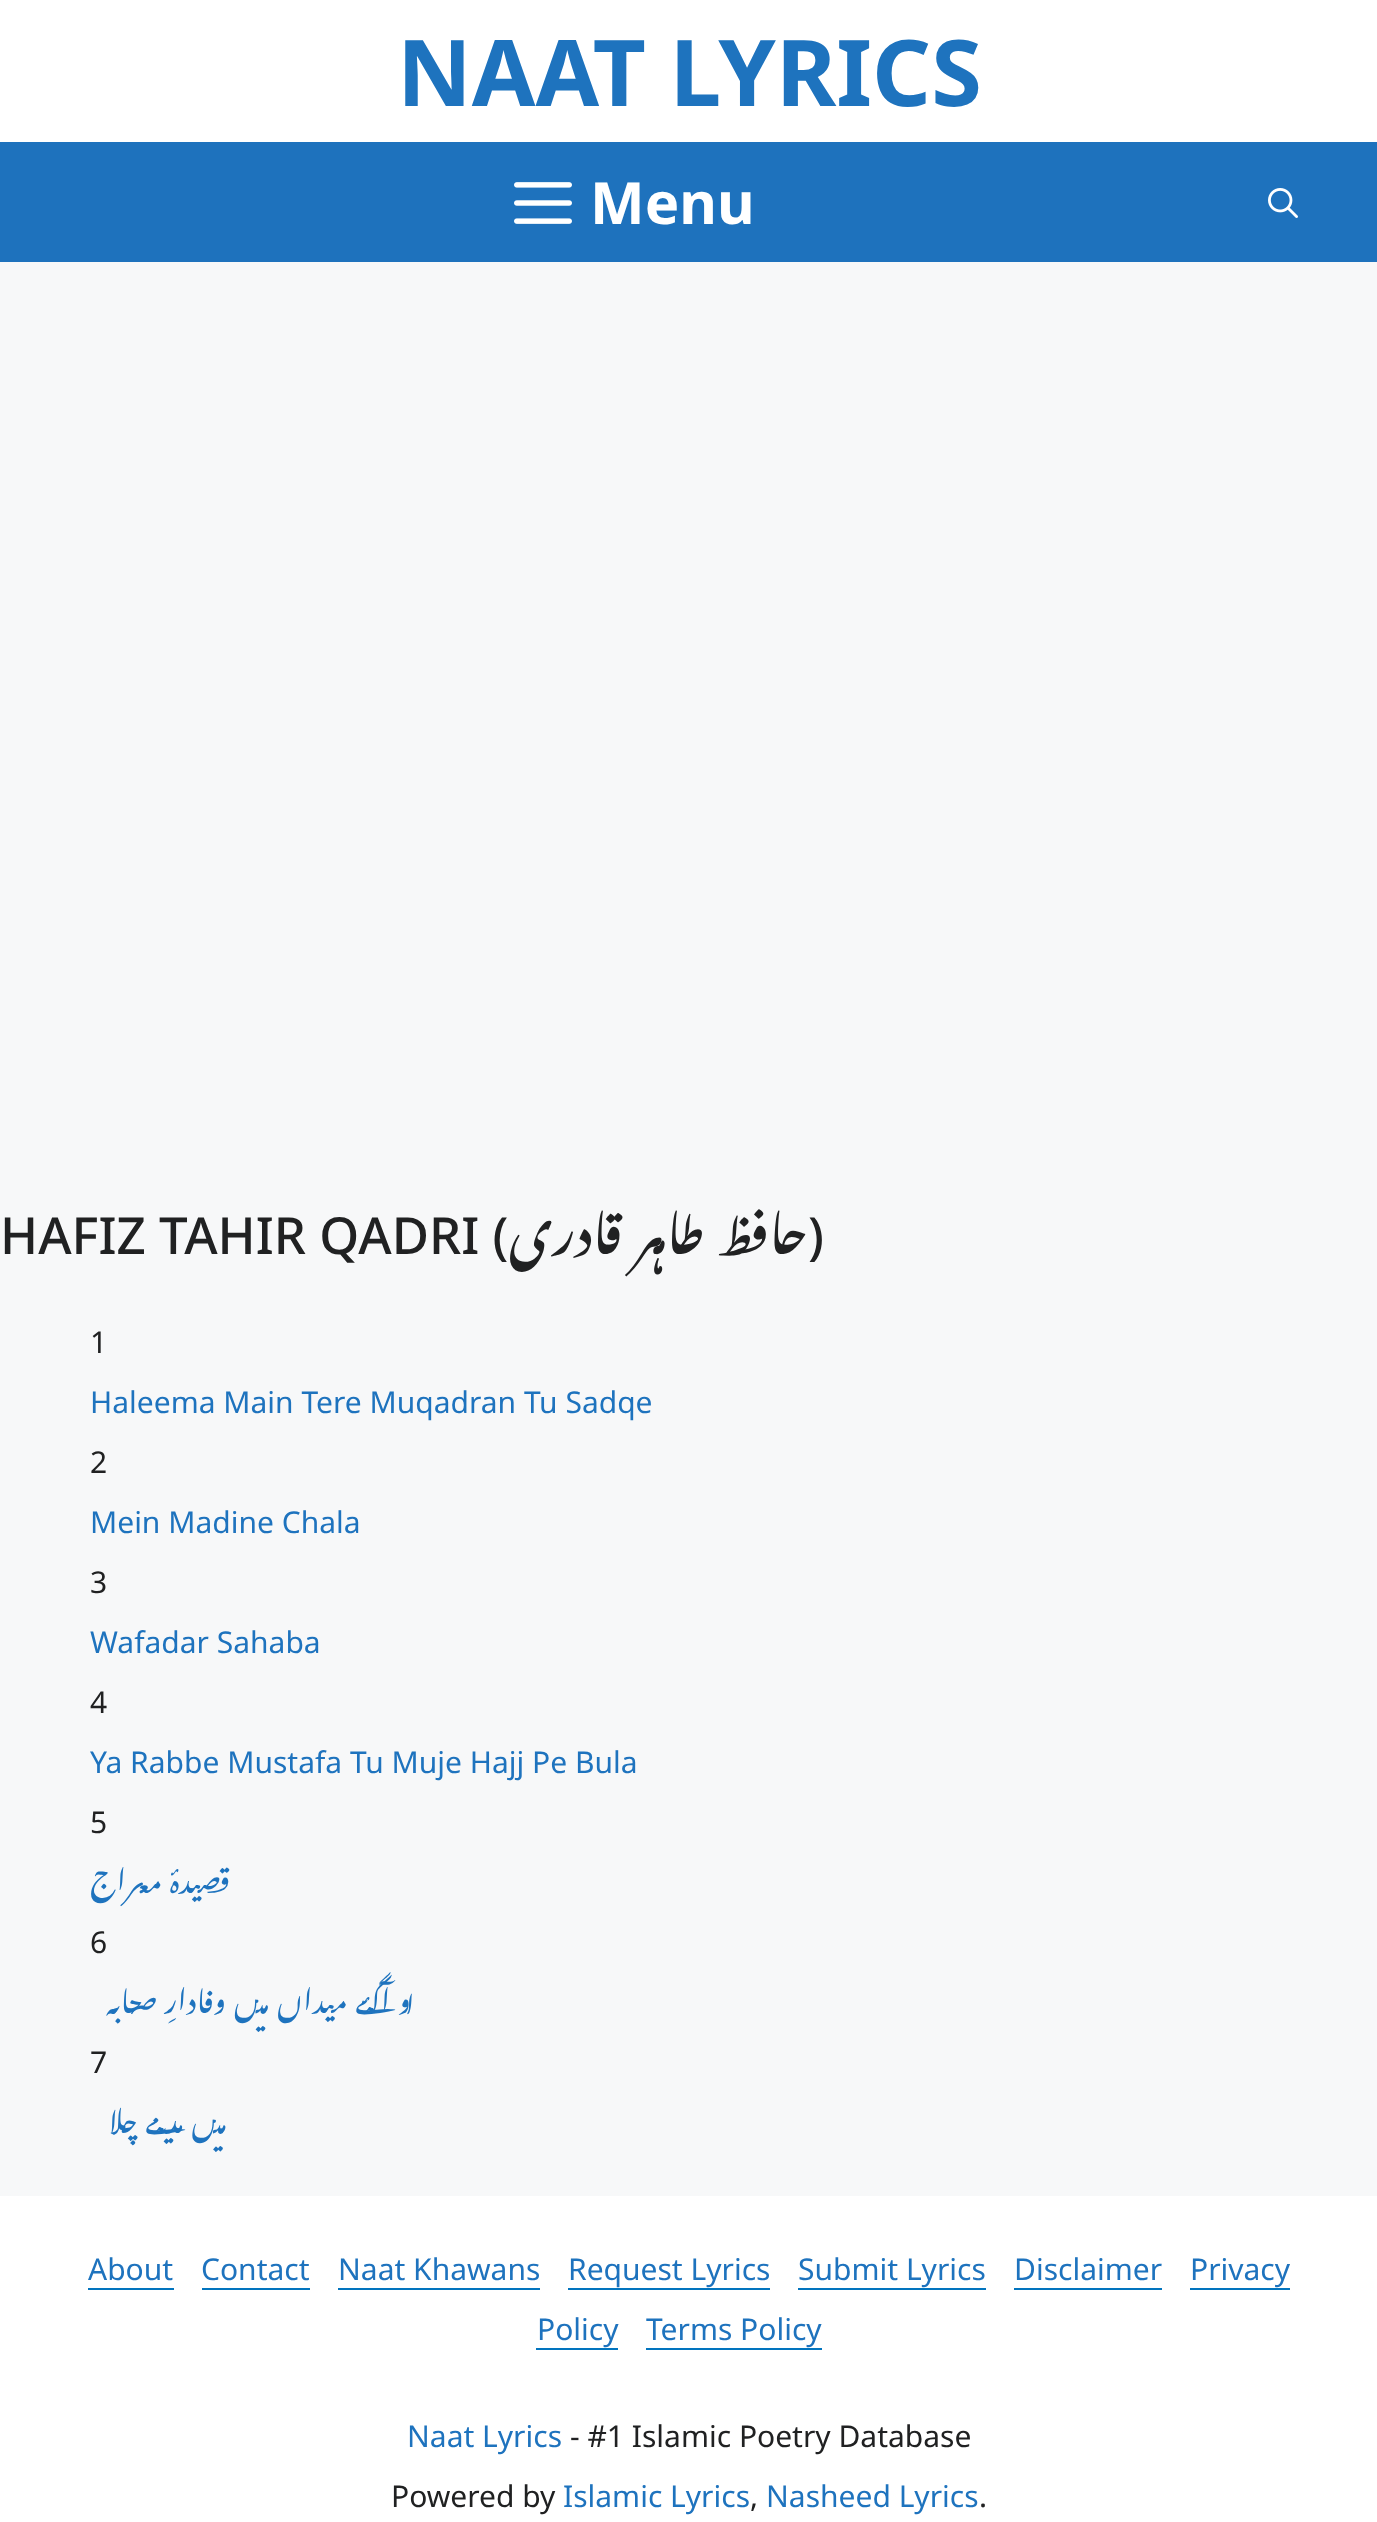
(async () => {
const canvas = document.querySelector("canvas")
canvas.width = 1377
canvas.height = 2522
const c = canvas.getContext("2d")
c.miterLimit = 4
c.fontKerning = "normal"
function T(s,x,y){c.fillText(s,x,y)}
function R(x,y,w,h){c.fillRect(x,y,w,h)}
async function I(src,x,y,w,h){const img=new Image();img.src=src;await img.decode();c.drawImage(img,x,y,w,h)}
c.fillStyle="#f7f8f9"
R(0,0,1377,2522)
c.fillStyle="#fff"
R(0,0,1377,142)
c.font="bold 92px Noto Sans"
c.fillStyle="#1e73be"
T("NAAT LYRICS",397,106)
c.fillStyle="#1e72bd"
R(0,142,1377,120)
await I("1.png",514,182,58,42)
c.font="bold 58px Noto Sans"
c.fillStyle="#fff"
T("Menu",590,224)
await I("2.png",1268,188,30,30)
c.font="500 51px Noto Sans"
c.fillStyle="#202122"
T("HAFIZ TAHIR QADRI (",0,1254)
c.wordSpacing="6px"
c.direction="rtl"
c.font="500 51px Noto Nastaliq Urdu"
T("حافظ طاہر قادری",808,1254)
c.wordSpacing="0px"
c.direction="ltr"
c.font="500 51px Noto Sans"
T(")",808,1254)
c.font="30px Noto Sans"
T("1",90,1353)
c.fillStyle="#1e73be"
T("Haleema Main Tere Muqadran Tu Sadqe",90,1413)
c.fillStyle="#202122"
T("2",90,1473)
c.fillStyle="#1e73be"
T("Mein Madine Chala",90,1533)
c.fillStyle="#202122"
T("3",90,1593)
c.fillStyle="#1e73be"
T("Wafadar Sahaba",90,1653)
c.fillStyle="#202122"
T("4",90,1713)
c.fillStyle="#1e73be"
T("Ya Rabbe Mustafa Tu Muje Hajj Pe Bula",90,1773)
c.fillStyle="#202122"
T("5",90,1833)
c.wordSpacing="3.75px"
c.direction="rtl"
c.font="30px Noto Nastaliq Urdu"
c.fillStyle="#1e73be"
T("قصیدۂ معراج",230,1893)
c.wordSpacing="0px"
c.direction="ltr"
c.font="30px Noto Sans"
c.fillStyle="#202122"
T("6",90,1953)
c.wordSpacing="3.75px"
c.direction="rtl"
c.font="30px Noto Nastaliq Urdu"
c.fillStyle="#1e73be"
T("لو آگئے میداں میں وفادارِ صحابہ",415,2013)
c.wordSpacing="0px"
c.direction="ltr"
c.font="30px Noto Sans"
c.fillStyle="#202122"
T("7",90,2073)
c.wordSpacing="3.75px"
c.direction="rtl"
c.font="30px Noto Nastaliq Urdu"
c.fillStyle="#1e73be"
T("میں مدینے چلا",227,2133)
c.fillStyle="#fff"
R(0,2196,1377,326)
c.wordSpacing="0px"
c.direction="ltr"
c.font="30px Noto Sans"
c.fillStyle="#1e73be"
T("About",88,2280)
c.fillStyle="#0274be"
R(88,2288,86,2)
c.fillStyle="#1e73be"
T("Contact",201,2280)
c.fillStyle="#0274be"
R(202,2288,108,2)
c.fillStyle="#1e73be"
T("Naat Khawans",338,2280)
c.fillStyle="#0274be"
R(338,2288,202,2)
c.fillStyle="#1e73be"
T("Request Lyrics",568,2280)
c.fillStyle="#0274be"
R(568,2288,202,2)
c.fillStyle="#1e73be"
T("Submit Lyrics",798,2280)
c.fillStyle="#0274be"
R(798,2288,188,2)
c.fillStyle="#1e73be"
T("Disclaimer",1014,2280)
c.fillStyle="#0274be"
R(1014,2288,148,2)
c.fillStyle="#1e73be"
T("Privacy",1190,2280)
c.fillStyle="#0274be"
R(1190,2288,100,2)
c.fillStyle="#1e73be"
T("Policy",537,2340)
c.fillStyle="#0274be"
R(536,2348,82,2)
c.fillStyle="#1e73be"
T("Terms Policy",646,2340)
c.fillStyle="#0274be"
R(646,2348,176,2)
c.fillStyle="#1e73be"
T("Naat Lyrics",407,2447)
c.fillStyle="#202122"
T("- #1 Islamic Poetry Database",570,2447)
T("Powered by",391,2507)
c.fillStyle="#1e73be"
T("Islamic Lyrics",563,2507)
c.fillStyle="#202122"
T(",",750,2507)
c.fillStyle="#1e73be"
T("Nasheed Lyrics",766,2507)
c.fillStyle="#202122"
T(".",979,2507)
})()
